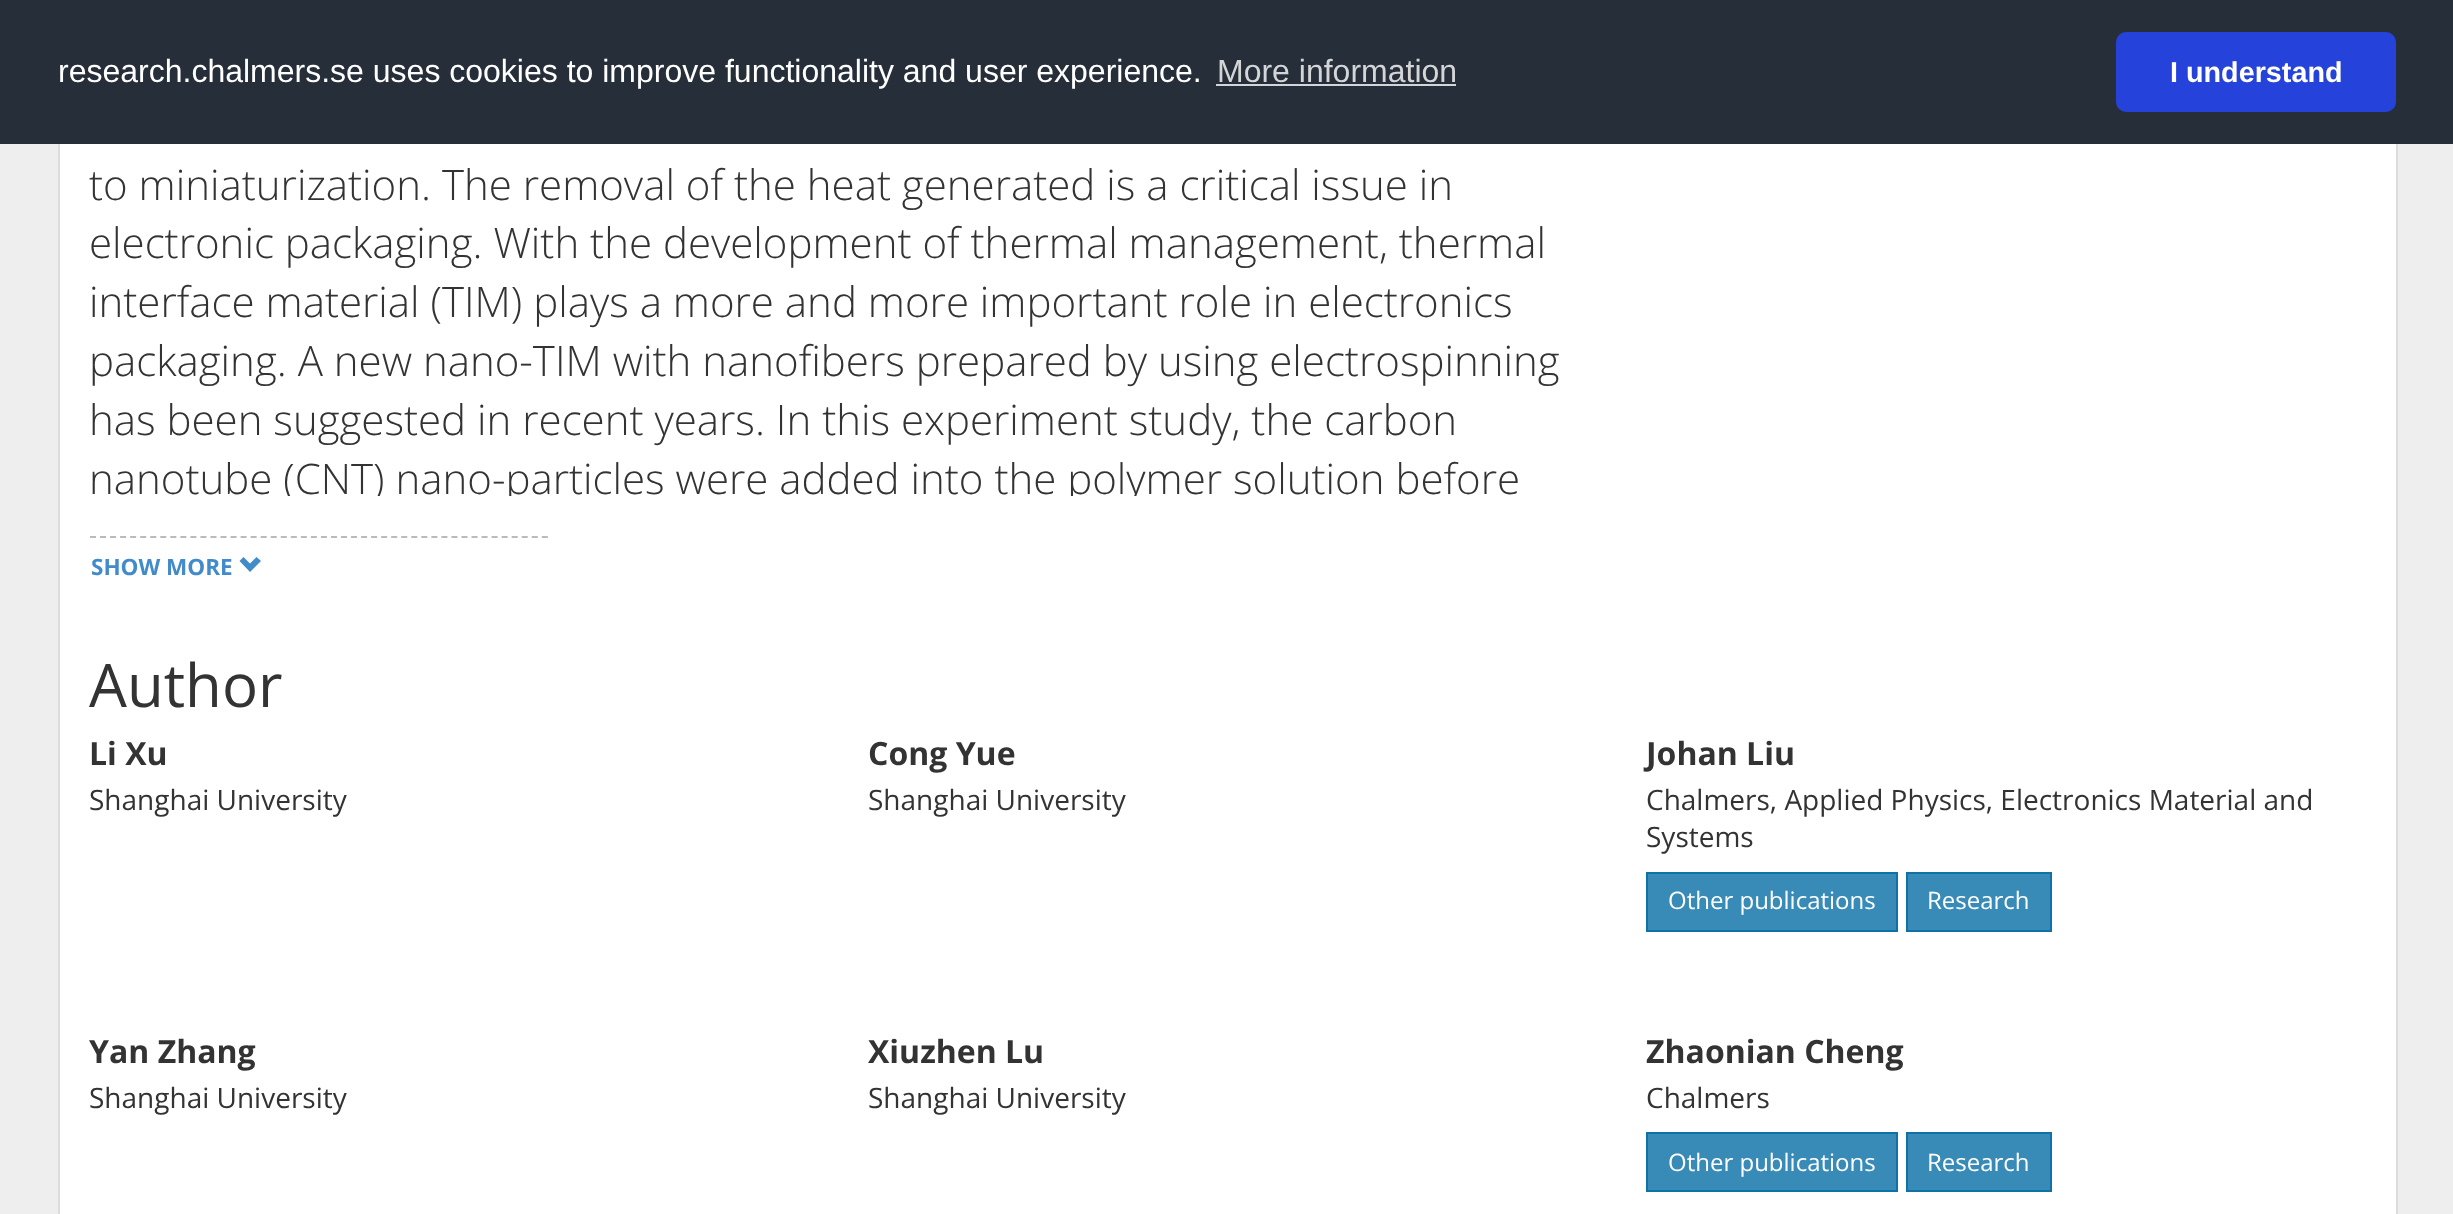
(async () => {
const canvas = document.querySelector("canvas")
canvas.width = 2453
canvas.height = 1214
const c = canvas.getContext("2d")
c.miterLimit = 4
c.fontKerning = "normal"
function T(s,x,y){c.fillText(s,x,y)}
function R(x,y,w,h){c.fillRect(x,y,w,h)}
function Q(x,y,w,h,r){c.beginPath();c.roundRect(x,y,w,h,r);c.fill()}
let path
c.fillStyle="#eee"
R(0,0,2453,1214)
c.fillStyle="#252e39"
R(0,0,2453,144)
c.font="32px Liberation Sans"
c.fillStyle="#fff"
T("research.chalmers.se uses cookies to improve functionality and user experience.",58,82)
c.fillStyle="#d3d5d7"
T("More information",1217,82)
R(1216,84,240,2)
c.fillStyle="#2543da"
Q(2116,32,280,80,10)
c.font="bold 28.75px Liberation Sans"
c.fillStyle="#fff"
T("I understand",2170,82)
R(60,144,2336,1070)
c.fillStyle="#dcdcdc"
R(2396,144,2,1070)
R(58,144,2,1070)
c.font="300 42px Open Sans"
c.fillStyle="#333"
T("to miniaturization. The removal of the heat generated is a critical issue in",89,200)
T("electronic packaging. With the development of thermal management, thermal",89,258)
T("interface material (TIM) plays a more and more important role in electronics",89,317)
T("packaging. A new nano-TIM with nanofibers prepared by using electrospinning",89,376)
T("has been suggested in recent years. In this experiment study, the carbon",89,435)
c.save()
c.beginPath()
c.rect(90,96,1496,400)
c.clip()
T("nanotube (CNT) nano-particles were added into the polymer solution before",89,494)
c.restore()
path = new Path2D("M90 537h458")
c.strokeStyle="#bbb"
c.lineWidth=2
c.setLineDash([6,4.04])
c.stroke(path)
c.font="bold 22.5px Open Sans"
c.fillStyle="#428bca"
T("SHOW MORE",91,575)
path = new Path2D("M239.5 561l10.5 11l11-11l-4.5-4l-6.5 6.5l-6.5-6.5z")
c.fill(path)
c.font="60px Open Sans"
c.fillStyle="#333"
T("Author",89,707)
c.font="bold 32px Open Sans"
T("Li Xu",89,765)
c.font="28px Open Sans"
T("Shanghai University",89,810)
c.font="bold 32px Open Sans"
T("Cong Yue",868,765)
c.font="28px Open Sans"
T("Shanghai University",868,810)
c.font="bold 32px Open Sans"
T("Johan Liu",1646,765)
c.font="28px Open Sans"
T("Chalmers, Applied Physics, Electronics Material and",1646,810)
T("Systems",1646,847)
c.fillStyle="#398bb7"
c.beginPath()
c.rect(1647,873,250,58)
c.fill()
c.strokeStyle="#0e72a7"
c.setLineDash([])
c.stroke()
c.font="24px Open Sans"
c.fillStyle="#fff"
T("Other publications",1668,909)
c.fillStyle="#398bb7"
c.beginPath()
c.rect(1907,873,144,58)
c.fill()
c.stroke()
c.fillStyle="#fff"
T("Research",1927,909)
c.font="bold 32px Open Sans"
c.fillStyle="#333"
T("Yan Zhang",89,1063)
c.font="28px Open Sans"
T("Shanghai University",89,1108)
c.font="bold 32px Open Sans"
T("Xiuzhen Lu",868,1063)
c.font="28px Open Sans"
T("Shanghai University",868,1108)
c.font="bold 32px Open Sans"
T("Zhaonian Cheng",1646,1063)
c.font="28px Open Sans"
T("Chalmers",1646,1108)
c.fillStyle="#398bb7"
c.beginPath()
c.rect(1647,1133,250,58)
c.fill()
c.stroke()
c.font="24px Open Sans"
c.fillStyle="#fff"
T("Other publications",1668,1171)
c.fillStyle="#398bb7"
c.beginPath()
c.rect(1907,1133,144,58)
c.fill()
c.stroke()
c.fillStyle="#fff"
T("Research",1927,1171)
})()
